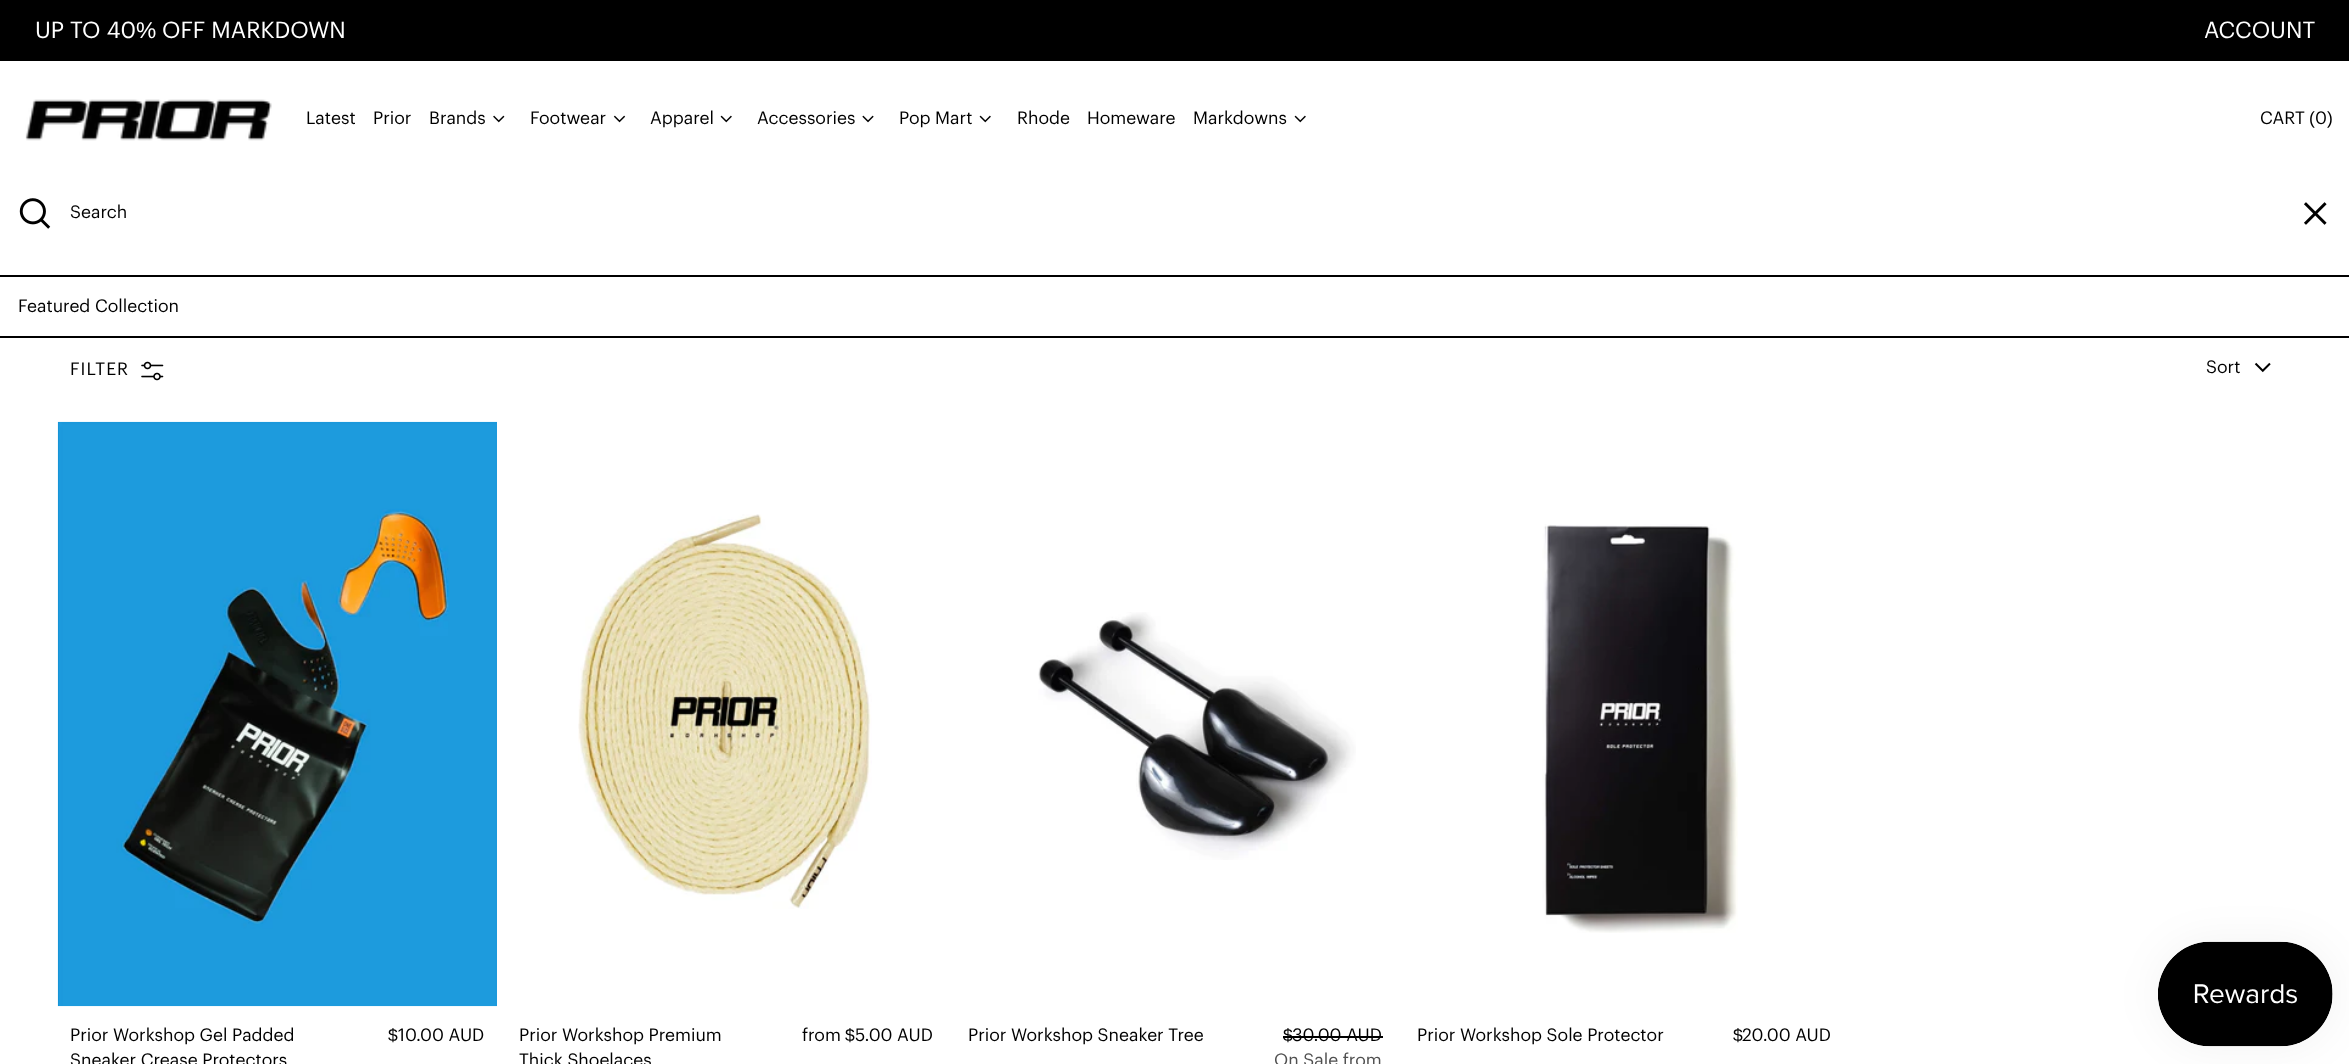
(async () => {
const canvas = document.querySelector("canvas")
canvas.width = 2349
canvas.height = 1064
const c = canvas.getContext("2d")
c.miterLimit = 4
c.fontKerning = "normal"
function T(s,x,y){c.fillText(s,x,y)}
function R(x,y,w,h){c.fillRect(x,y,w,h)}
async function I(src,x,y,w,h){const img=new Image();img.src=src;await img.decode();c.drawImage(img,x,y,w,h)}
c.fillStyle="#fff"
R(0,0,2349,1064)
c.fillStyle="#000"
R(0,0,2349,61)
c.font="22.75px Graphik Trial"
c.fillStyle="#fff"
T("UP TO 40",35,38)
c.font="22.75px Liberation Sans"
T("%",136,38)
c.font="22.75px Graphik Trial"
T("OFF MARKDOWN",162,38)
T("ACCOUNT",2204,38)
await I("1.png",25,99,247,42)
c.font="17.5px Graphik Trial"
c.fillStyle="#000"
T("Latest",306,124)
T("Prior",373,124)
T("Brands",429,124)
await I("2.png",493,115,12,8)
T("Footwear",530,124)
await I("3.png",613,115,13,8)
T("Apparel",650,124)
await I("4.png",720,115,12,8)
T("Accessories",757,124)
await I("5.png",862,115,12,8)
T("Pop Mart",899,124)
await I("4.png",979,115,12,8)
T("Rhode",1017,124)
T("Homeware",1087,124)
T("Markdowns",1193,124)
await I("4.png",1294,115,12,8)
T("CART",2260,124)
c.font="17.5px Liberation Sans"
T("(",2309,124)
c.font="17.5px Graphik Trial"
T("0",2315,124)
c.font="17.5px Liberation Sans"
T(")",2327,124)
await I("6.png",19,198,32,31)
c.font="17.5px Graphik Trial"
T("Search",70,218)
await I("7.png",2304,202,23,23)
R(0,275,2349,2)
R(0,336,2349,2)
T("Featured Collection",18,312)
c.letterSpacing="1px"
T("FILTER",70,375)
await I("8.png",141,361,23,20)
c.letterSpacing="0px"
T("Sort",2206,373)
await I("9.png",2254,362,17,11)
await I("10.png",57,421,440,586)
T("Prior Workshop Gel Padded",70,1041)
T("Sneaker Crease Protectors",70,1066)
c.font="17.5px Liberation Sans"
T("$",388,1041)
c.font="17.5px Graphik Trial"
T("10.00 AUD",398,1041)
await I("11.png",578,514,294,395)
T("Prior Workshop Premium",519,1041)
T("Thick Shoelaces",519,1066)
T("from",802,1041)
c.font="17.5px Liberation Sans"
T("$",845,1041)
c.font="17.5px Graphik Trial"
T("5.00 AUD",855,1041)
await I("12.png",1038,612,318,248)
T("Prior Workshop Sneaker Tree",968,1041)
c.font="17.5px Liberation Sans"
T("$",1283,1041)
R(1283,1036,100,2)
c.font="17.5px Graphik Trial"
T("30.00 AUD",1292,1041)
c.fillStyle="#505050"
T("On Sale from",1274,1066)
await I("13.png",1542,524,196,409)
c.fillStyle="#000"
T("Prior Workshop Sole Protector",1417,1041)
c.font="17.5px Liberation Sans"
T("$",1733,1041)
c.font="17.5px Graphik Trial"
T("20.00 AUD",1742,1041)
c.fillStyle="#0000000d"
c.filter="blur(22px)"
c.beginPath()
c.roundRect(2158,942,175,105,52.5)
c.fill()
c.filter="none"
await I("14.png",2158,941,175,106)
})()
